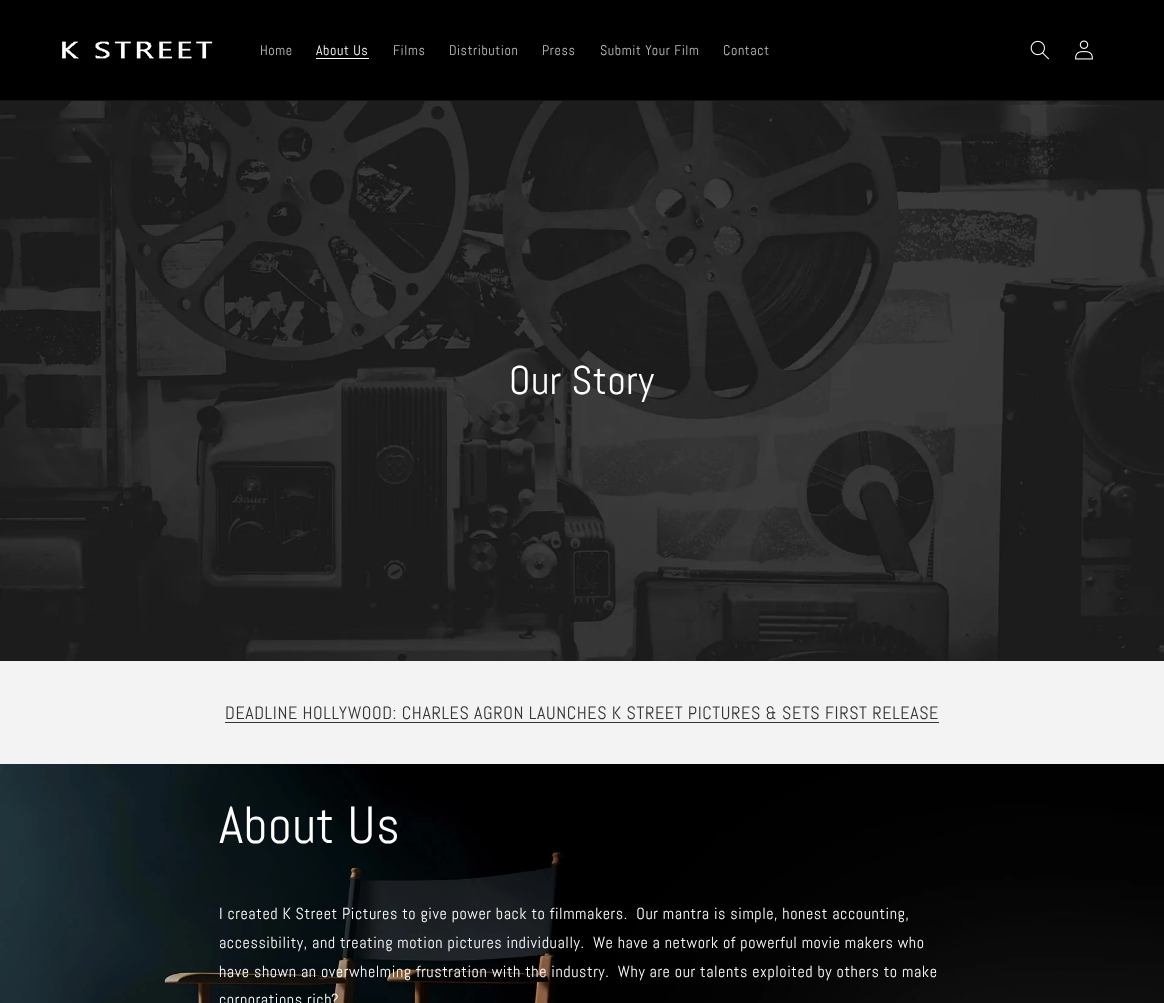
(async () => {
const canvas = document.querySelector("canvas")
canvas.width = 1164
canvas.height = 1003
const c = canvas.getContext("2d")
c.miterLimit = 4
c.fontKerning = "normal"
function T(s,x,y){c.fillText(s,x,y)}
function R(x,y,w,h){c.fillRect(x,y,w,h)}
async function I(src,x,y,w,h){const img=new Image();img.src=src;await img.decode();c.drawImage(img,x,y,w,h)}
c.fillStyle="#fff"
R(0,0,1164,1003)
c.fillStyle="#000"
R(0,0,1164,100)
c.fillStyle="#141414"
R(0,100,1164,1)
await I("1.png",62,41,151,18)
c.letterSpacing="0.6px"
c.font="14px Abel"
c.fillStyle="#bfbfbf"
T("Home",260,55)
c.fillStyle="#fff"
T("About Us",316,55)
R(316,58,53,1)
c.fillStyle="#bfbfbf"
T("Films",393,55)
T("Distribution",449,55)
T("Press",542,55)
T("Submit Your Film",600,55)
T("Contact",723,55)
await I("2.png",1030,40,19,20)
await I("3.png",1075,40,18,20)
await I("4.png",0,101,1164,560)
c.font="40px Abel"
c.fillStyle="#fff"
T("Our Story",509,394)
c.fillStyle="#f3f3f3"
R(0,661,1164,103)
c.font="18px Abel"
c.fillStyle="#343434"
T("DEADLINE HOLLYWOOD: CHARLES AGRON LAUNCHES K STREET PICTURES & SETS FIRST RELEASE",225,719)
R(225,722,714,1)
await I("5.png",0,764,1164,239)
c.font="52px Abel"
c.fillStyle="#fff"
T("About Us",219,843)
c.font="16px Abel"
T("I created K Street Pictures to give power back to filmmakers.  Our mantra is simple, honest accounting,",219,919)
T("accessibility, and treating motion pictures individually.  We have a network of powerful movie makers who",219,948)
T("have shown an overwhelming frustration with the industry.  Why are our talents exploited by others to make",219,977)
T("corporations rich?",219,1005)
})()
